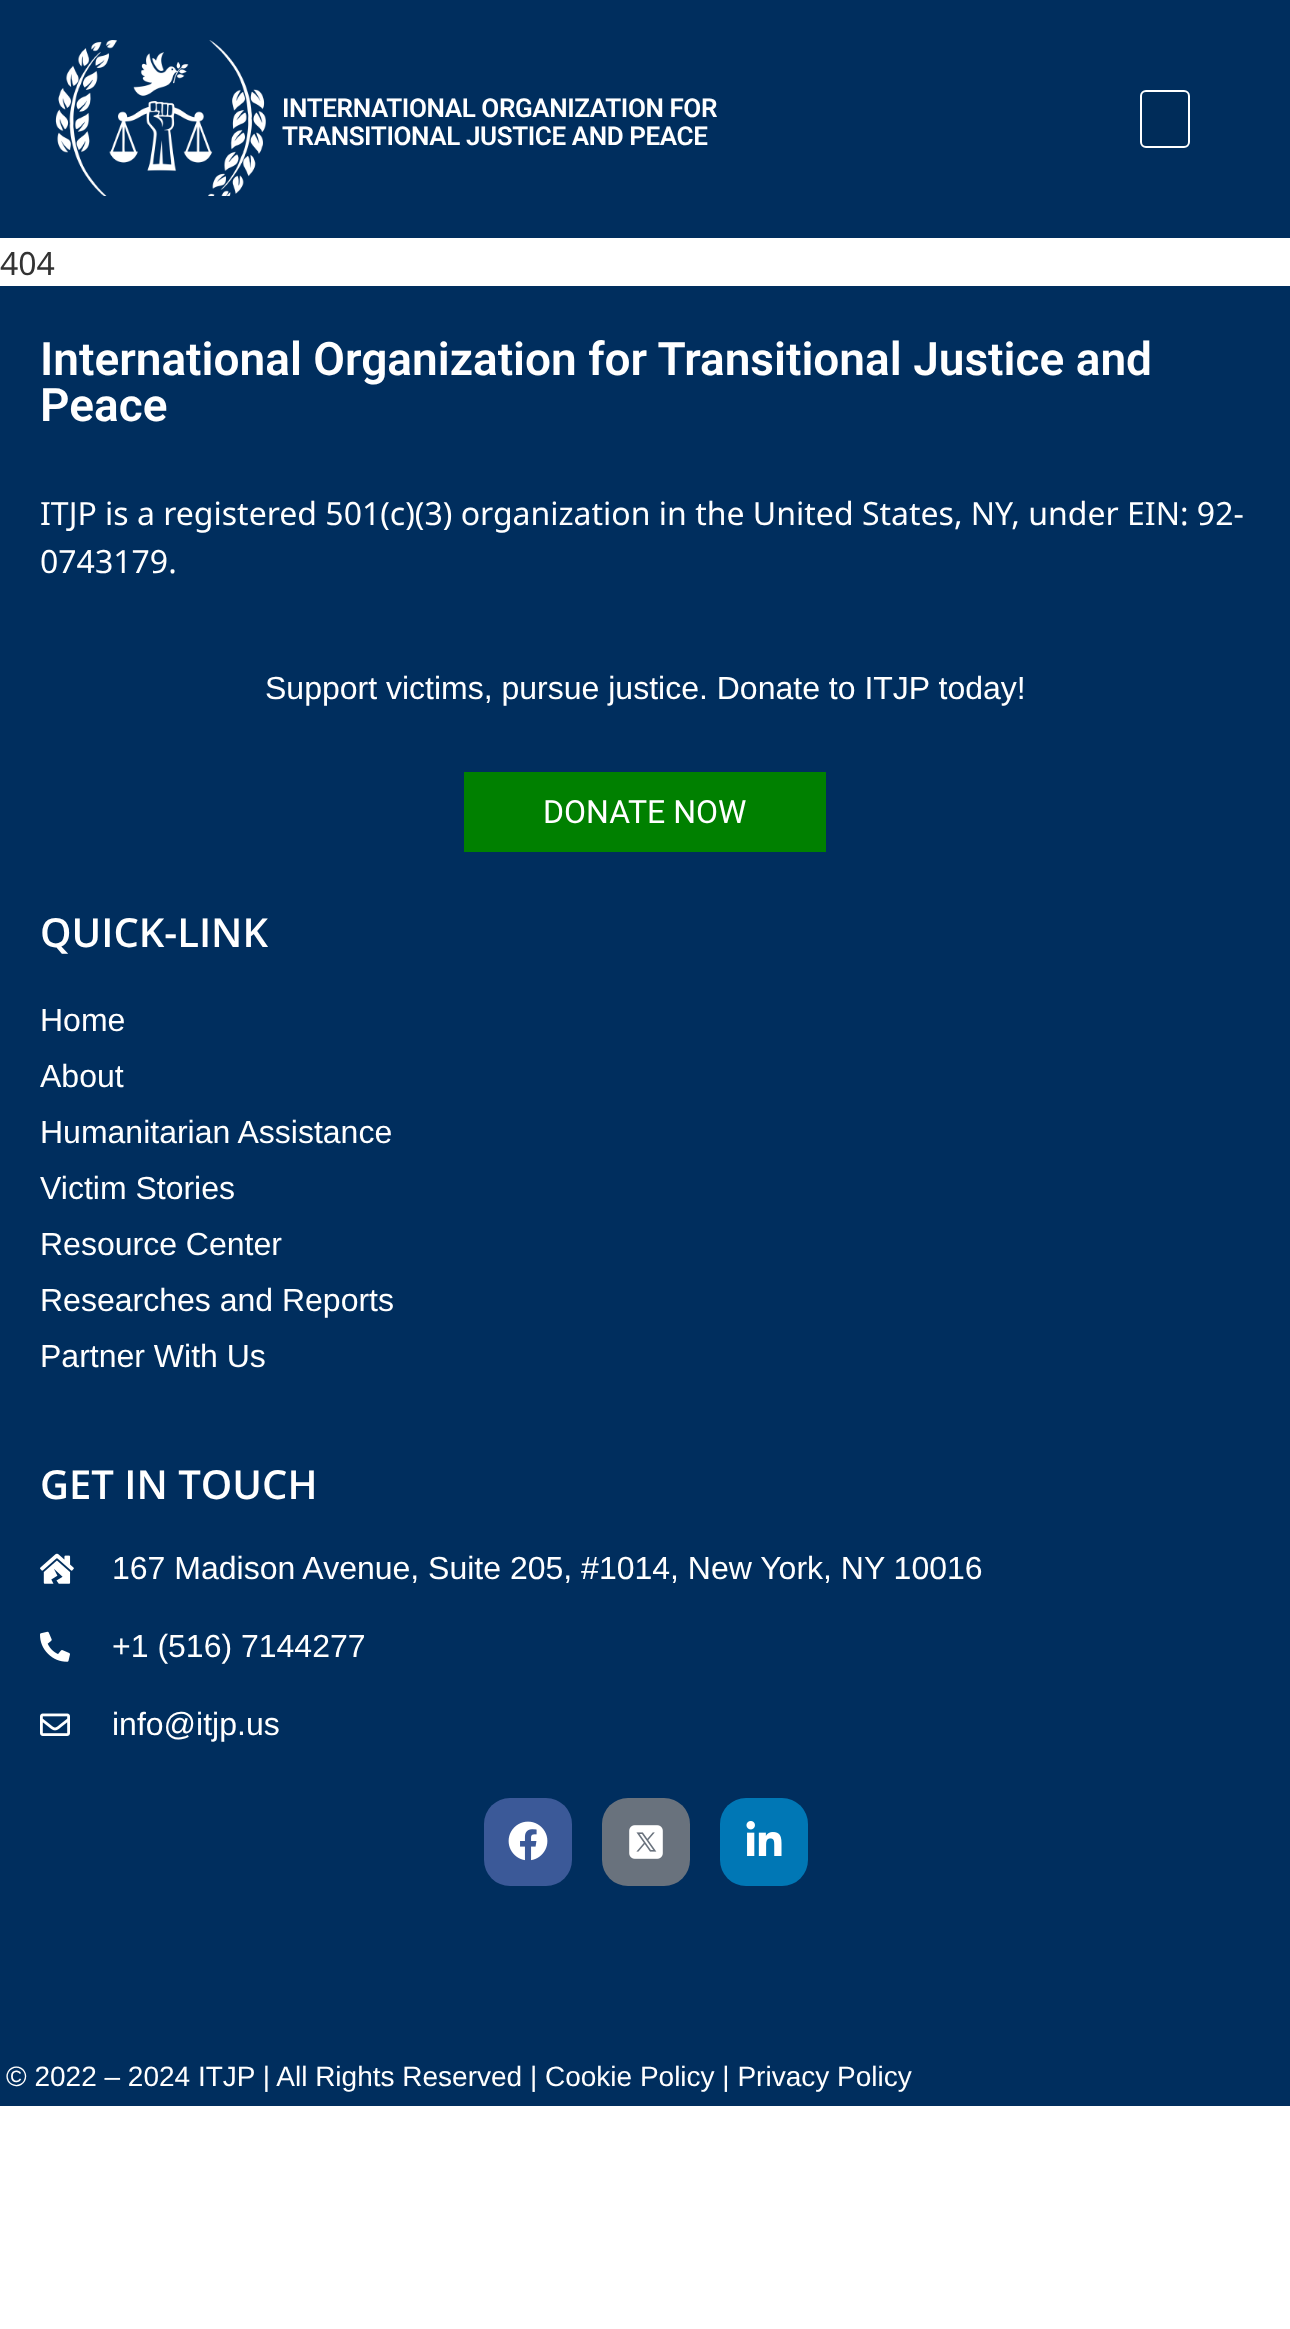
(async () => {
const canvas = document.querySelector("canvas")
canvas.width = 1290
canvas.height = 2329
const c = canvas.getContext("2d")
c.miterLimit = 4
c.fontKerning = "normal"
function T(s,x,y){c.fillText(s,x,y)}
function R(x,y,w,h){c.fillRect(x,y,w,h)}
function Q(x,y,w,h,r){c.beginPath();c.roundRect(x,y,w,h,r);c.fill()}
async function I(src,x,y,w,h){const img=new Image();img.src=src;await img.decode();c.drawImage(img,x,y,w,h)}
c.fillStyle="#fff"
R(0,0,1290,2329)
c.fillStyle="#002e5e"
R(0,0,1290,238)
await I("1.png",55,40,211,156)
c.letterSpacing="-0.4px"
c.font="600 26px Roboto"
c.fillStyle="#fff"
T("INTERNATIONAL ORGANIZATION FOR",282,117)
T("TRANSITIONAL JUSTICE AND PEACE",282,145)
c.fillStyle="#002c59"
c.beginPath()
c.roundRect(1141,91,48,56,5)
c.fill()
c.strokeStyle="#fff"
c.lineWidth=2
c.stroke()
c.letterSpacing="0px"
c.font="32px Noto Sans"
c.fillStyle="#333"
T("404",0,275)
c.fillStyle="#002e5e"
R(0,286,1290,1820)
c.font="600 46px Roboto"
c.fillStyle="#fff"
T("International Organization for Transitional Justice and",40,375)
T("Peace",40,421)
c.font="32px Noto Sans"
T("ITJP is a registered 501(c)(3) organization in the United States, NY, under EIN: 92-",40,525)
T("0743179.",40,573)
c.font="32px Liberation Sans"
T("Support victims, pursue justice. Donate to ITJP today!",265,699)
c.fillStyle="#008000"
R(464,772,362,80)
c.font="32px Roboto"
c.fillStyle="#fff"
T("DONATE NOW",543,823)
c.font="600 40px Open Sans"
T("QUICK-LINK",40,947)
c.font="32px Liberation Sans"
T("Home",40,1031)
T("About",40,1087)
T("Humanitarian Assistance",40,1143)
T("Victim Stories",40,1199)
T("Resource Center",40,1255)
T("Researches and Reports",40,1311)
T("Partner With Us",40,1367)
c.font="600 40px Open Sans"
T("GET IN TOUCH",40,1499)
await I("2.png",40,1553,34,31)
c.font="32px Liberation Sans"
T("167 Madison Avenue, Suite 205, #1014, New York, NY 10016",112,1579)
await I("3.png",40,1631,30,31)
T("+1 (516) 7144277",112,1657)
await I("4.png",40,1713,30,23)
T("info@itjp.us",112,1735)
c.fillStyle="#3b5998"
Q(484,1798,88,88,26)
await I("5.png",508,1821,40,40)
c.fillStyle="#69727d"
Q(602,1798,88,88,26)
await I("6.png",629,1825,34,34)
c.fillStyle="#0077b5"
Q(720,1798,88,88,26)
await I("7.png",746,1821,36,35)
c.font="28px Liberation Sans"
c.fillStyle="#fff"
T("© 2022 – 2024 ITJP | All Rights Reserved | Cookie Policy | Privacy Policy",6,2086)
})()
